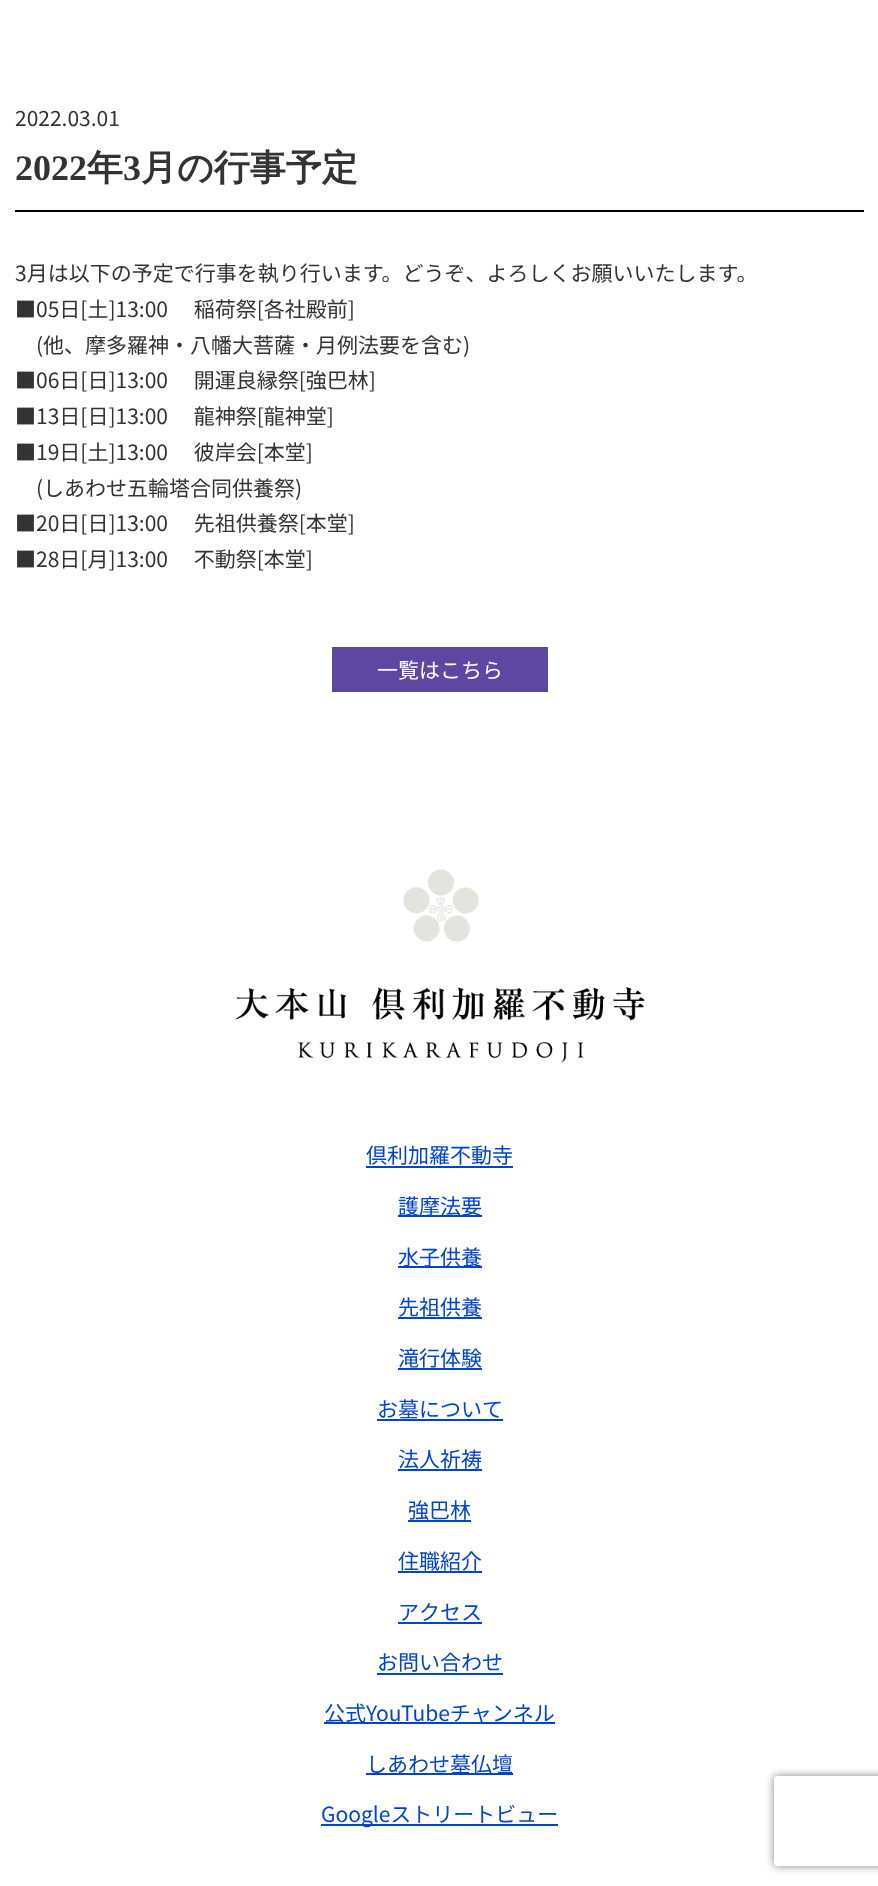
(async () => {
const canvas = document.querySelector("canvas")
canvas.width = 878
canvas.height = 1886
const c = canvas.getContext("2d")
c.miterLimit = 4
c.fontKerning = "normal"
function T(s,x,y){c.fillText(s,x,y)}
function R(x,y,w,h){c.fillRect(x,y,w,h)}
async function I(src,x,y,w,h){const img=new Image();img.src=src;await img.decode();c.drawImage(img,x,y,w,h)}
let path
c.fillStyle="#fff"
R(0,0,878,1886)
c.font="21px Noto Sans JP"
c.fillStyle="#333"
T("2022.03.01",15,126)
c.fillStyle="#000"
R(15,210,849,2)
c.font="bold 36px Liberation Serif"
c.fillStyle="#333"
T("2022",15,180)
c.font="bold 36px WenQuanYi Zen Hei"
T("年",87,180)
c.font="bold 36px Liberation Serif"
T("3",123,180)
c.font="bold 36px WenQuanYi Zen Hei"
T("月の行事予定",141,180)
c.font="21px Noto Sans JP"
T("3月は以下の予定で行事を執り行います。どうぞ、よろしくお願いいたします。",15,281)
T("■05日[土]13:00 　稲荷祭[各社殿前]",15,317)
T("(他、摩多羅神・八幡大菩薩・月例法要を含む)",36,353)
T("■06日[日]13:00 　開運良縁祭[強巴林]",15,388)
T("■13日[日]13:00 　龍神祭[龍神堂]",15,424)
T("■19日[土]13:00 　彼岸会[本堂]",15,460)
T("(しあわせ五輪塔合同供養祭)",36,496)
T("■20日[日]13:00 　先祖供養祭[本堂]",15,531)
T("■28日[月]13:00 　不動祭[本堂]",15,567)
c.fillStyle="#5d47a2"
R(332,647,216,45)
c.fillStyle="#fff"
T("一覧はこちら",377,678)
await I("1.png",235,869,410,194)
c.fillStyle="#04c"
T("倶利加羅不動寺",366,1163)
R(366,1166,147,2)
R(398,1215,84,2)
T("護摩法要",398,1214)
R(398,1266,84,2)
T("水子供養",398,1265)
T("先祖供養",398,1315)
R(398,1317,84,2)
T("滝行体験",398,1366)
R(398,1368,84,2)
T("お墓について",377,1417)
R(377,1419,126,2)
T("法人祈祷",398,1467)
R(398,1469,84,2)
T("強巴林",408,1518)
R(408,1520,63,2)
T("住職紹介",398,1569)
R(398,1571,84,2)
T("アクセス",398,1620)
R(398,1622,84,2)
T("お問い合わせ",377,1670)
R(377,1673,126,2)
R(324,1722,231,2)
T("公式YouTubeチャンネル",324,1721)
R(366,1773,147,2)
T("しあわせ墓仏壇",366,1772)
R(321,1824,237,2)
T("Googleストリートビュー",321,1822)
c.save()
path = new Path2D("M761 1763h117v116h-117zm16 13h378c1.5 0 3 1.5 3 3v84c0 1.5-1.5 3-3 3h-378c-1.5 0-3-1.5-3-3v-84c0-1.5 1.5-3 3-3z")
c.clip(path,"evenodd")
c.fillStyle="#808080"
c.filter="blur(4px)"
c.beginPath()
c.roundRect(774,1776,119,90,3)
c.fill()
c.filter="none"
c.restore()
})()
